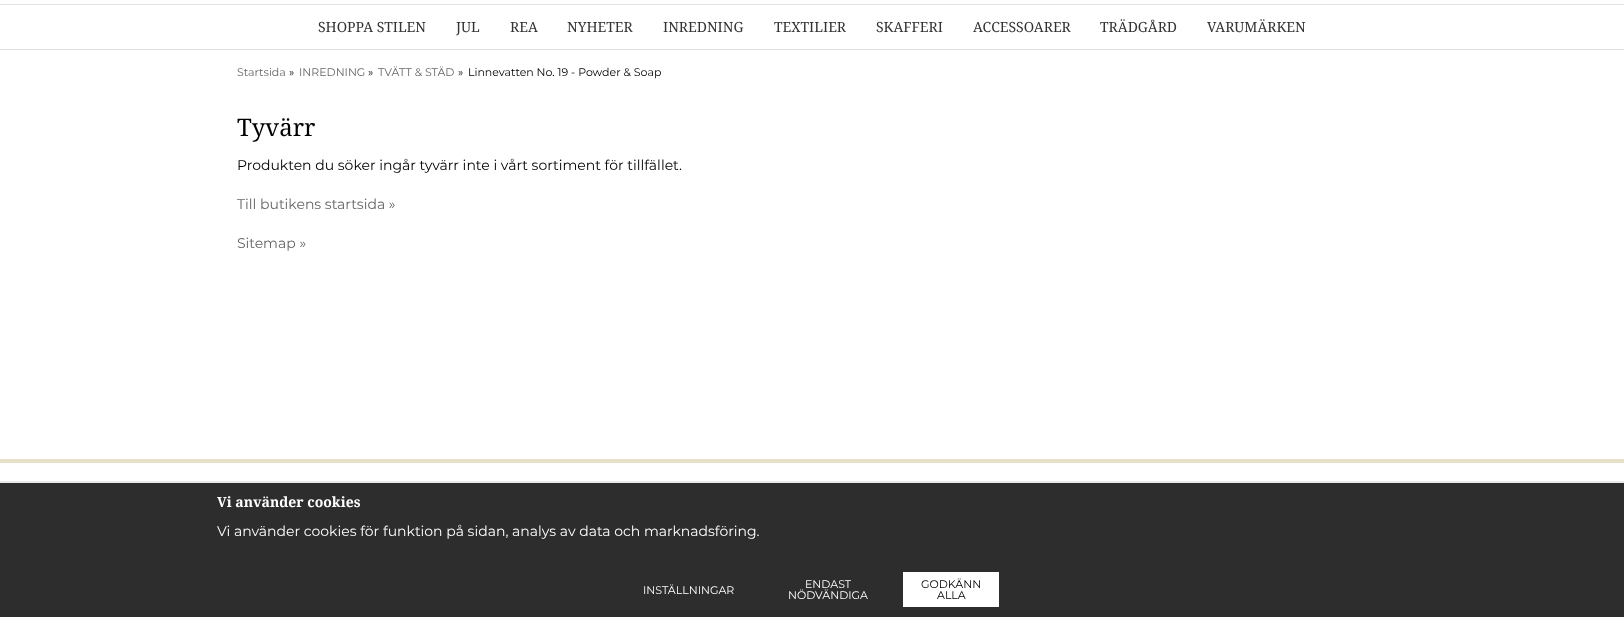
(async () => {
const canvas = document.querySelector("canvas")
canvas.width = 1624
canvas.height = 617
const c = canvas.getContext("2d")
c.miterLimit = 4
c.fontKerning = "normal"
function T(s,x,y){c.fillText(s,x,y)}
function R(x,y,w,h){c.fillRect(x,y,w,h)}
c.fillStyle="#fff"
R(0,0,1624,617)
c.fillStyle="#e2e2e2"
R(0,4,1624,1)
R(0,49,1624,1)
c.font="14px Droid Serif"
c.fillStyle="#333"
T("SHOPPA STILEN",318,32)
T("JUL",456,32)
T("REA",510,32)
T("NYHETER",567,32)
T("INREDNING",663,32)
T("TEXTILIER",774,32)
T("SKAFFERI",876,32)
T("ACCESSOARER",973,32)
T("TRÄDGÅRD",1100,32)
T("VARUMÄRKEN",1207,32)
c.font="11px Montserrat"
c.fillStyle="#666"
T("Startsida",237,76)
c.fillStyle="#000"
T("»",289,76)
c.fillStyle="#666"
T("INREDNING",299,76)
c.fillStyle="#000"
T("»",368,76)
c.fillStyle="#666"
T("TVÄTT & STÄD",378,76)
c.fillStyle="#000"
T("»",458,76)
T("Linnevatten No. 19 - Powder & Soap",468,76)
c.font="24px Droid Serif"
T("Tyvärr",237,136)
c.font="14px Montserrat"
T("Produkten du söker ingår tyvärr inte i vårt sortiment för tillfället.",237,170)
c.fillStyle="#666"
T("Till butikens startsida »",237,209)
T("Sitemap »",237,248)
c.fillStyle="#e7e0c7"
R(0,459,1624,4)
c.fillStyle="#2d2d2d"
R(0,483,1624,134)
c.fillStyle="#e9e9e9"
R(0,481,1624,2)
c.font="bold 14px Droid Serif"
c.fillStyle="#fff"
T("Vi använder cookies",217,507)
c.font="14px Montserrat"
T("Vi använder cookies för funktion på sidan, analys av data och marknadsföring.",217,536)
c.font="11px Montserrat"
T("INSTÄLLNINGAR",643,594)
T("ENDAST",805,588)
T("NÖDVÄNDIGA",788,599)
R(903,572,96,35)
c.fillStyle="#000"
T("GODKÄNN",921,588)
T("ALLA",937,599)
})()
